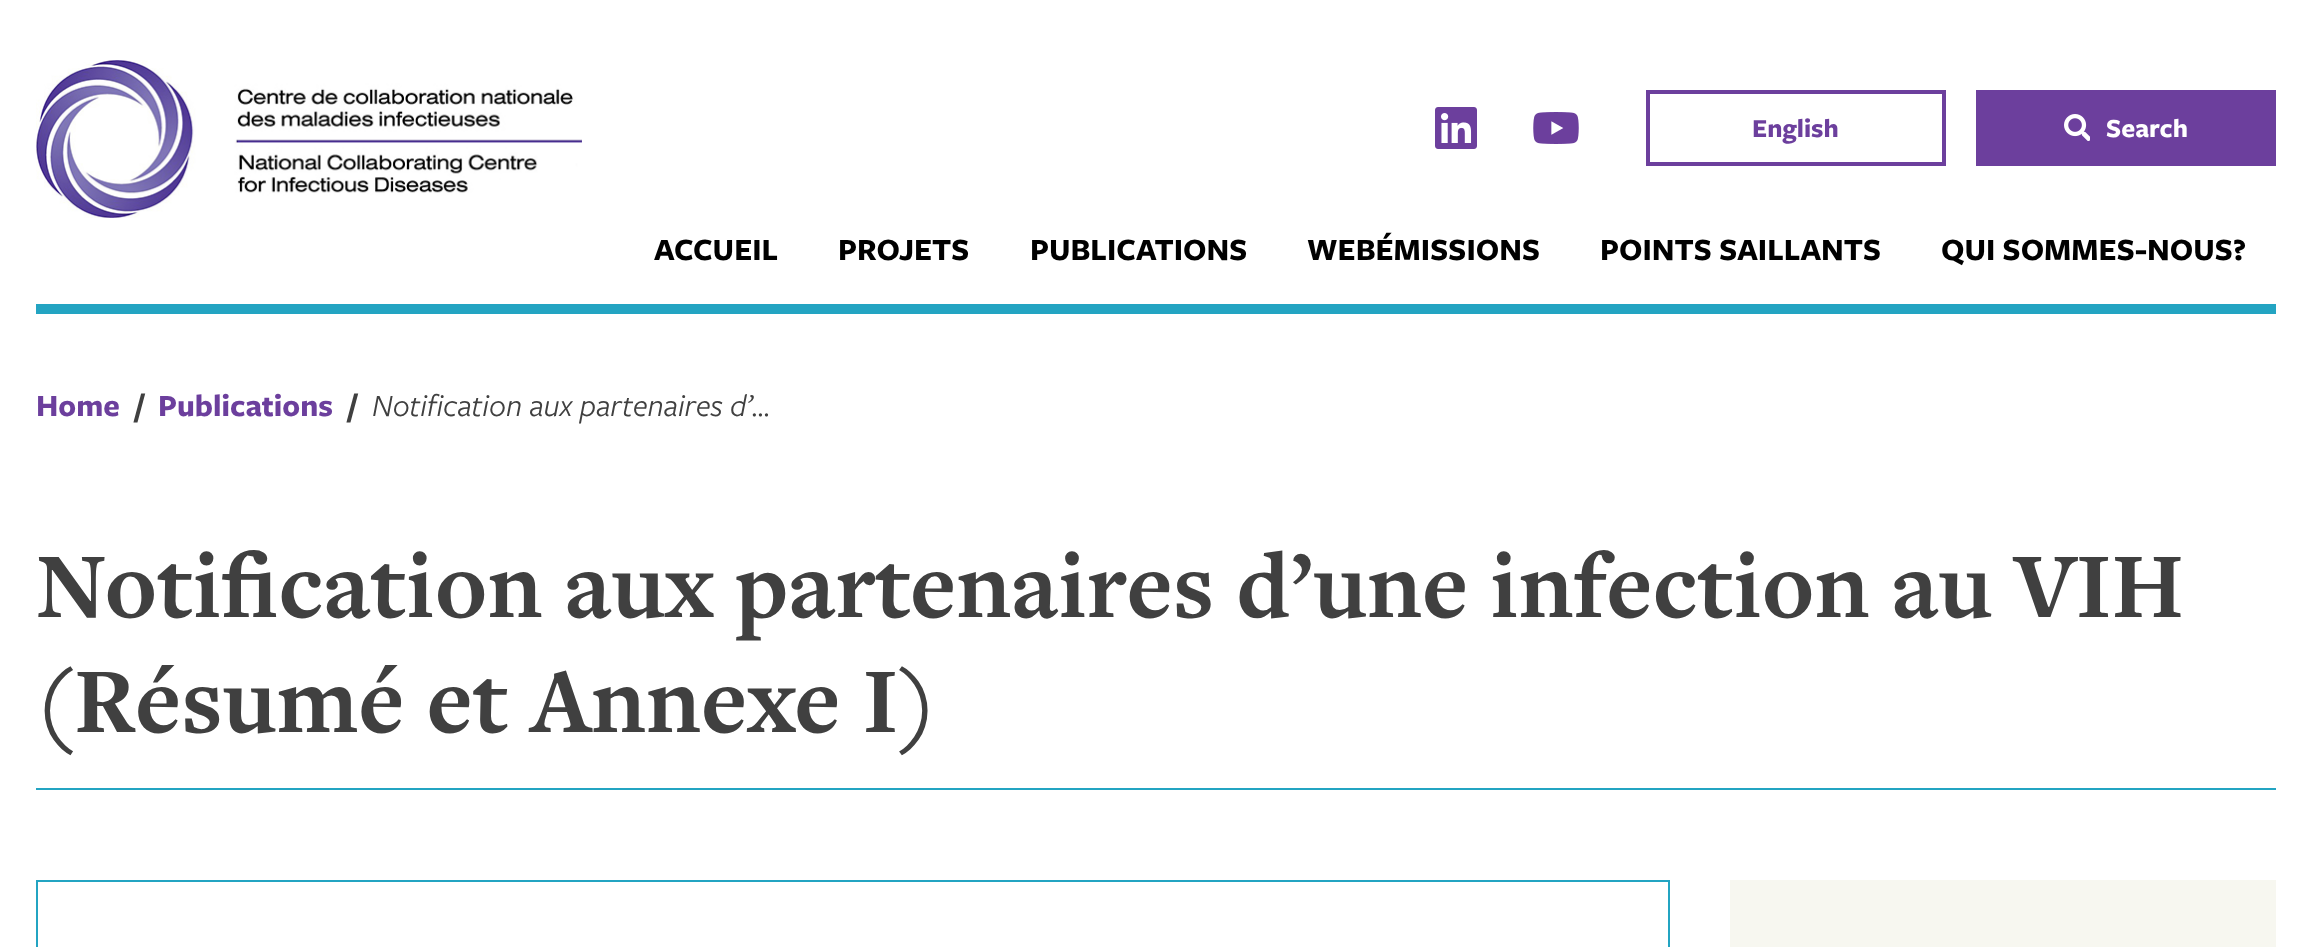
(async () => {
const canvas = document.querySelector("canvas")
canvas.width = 2311
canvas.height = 947
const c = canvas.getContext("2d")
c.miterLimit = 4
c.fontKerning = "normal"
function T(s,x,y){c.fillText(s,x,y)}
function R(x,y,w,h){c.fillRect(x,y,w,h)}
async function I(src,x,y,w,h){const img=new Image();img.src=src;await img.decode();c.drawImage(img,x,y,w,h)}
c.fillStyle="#fff"
R(0,0,2311,947)
c.fillStyle="#23a4c2"
R(36,304,2240,10)
await I("1.png",36,60,546,158)
await I("2.png",1435,107,42,42)
await I("3.png",1533,112,46,32)
c.strokeStyle="#6c3f9d"
c.lineWidth=4
c.strokeRect(1648,92,296,72)
c.font="bold 27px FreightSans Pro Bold"
c.fillStyle="#6c3f9d"
T("English",1752,137)
R(1976,90,300,76)
await I("4.png",2064,114,26,27)
c.fillStyle="#fff"
T("Search",2106,137)
c.font="bold 32px FreightSans Pro Bold"
c.fillStyle="#000"
T("ACCUEIL",654,260)
T("PROJETS",838,260)
T("PUBLICATIONS",1030,260)
T("WEBÉMISSIONS",1307,260)
T("POINTS SAILLANTS",1600,260)
T("QUI SOMMES-NOUS?",1941,260)
c.fillStyle="#6c3f9d"
T("Home",36,416)
c.fillStyle="#404040"
T("/",135,416)
c.fillStyle="#6c3f9d"
T("Publications",158,416)
c.fillStyle="#404040"
T("/",348,416)
c.font="italic 32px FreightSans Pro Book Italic"
T("Notification aux partenaires d’…",372,416)
c.fillStyle="#23a4c2"
R(36,788,2240,2)
c.font="bold 96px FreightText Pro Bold"
c.fillStyle="#404040"
T("Notification aux partenaires d’une infection au VIH",36,617)
T("(Résumé et Annexe I)",36,732)
c.strokeStyle="#23a4c2"
c.lineWidth=2
c.strokeRect(37,881,1632,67)
c.fillStyle="#f7f7f0"
R(1730,880,546,67)
})()
